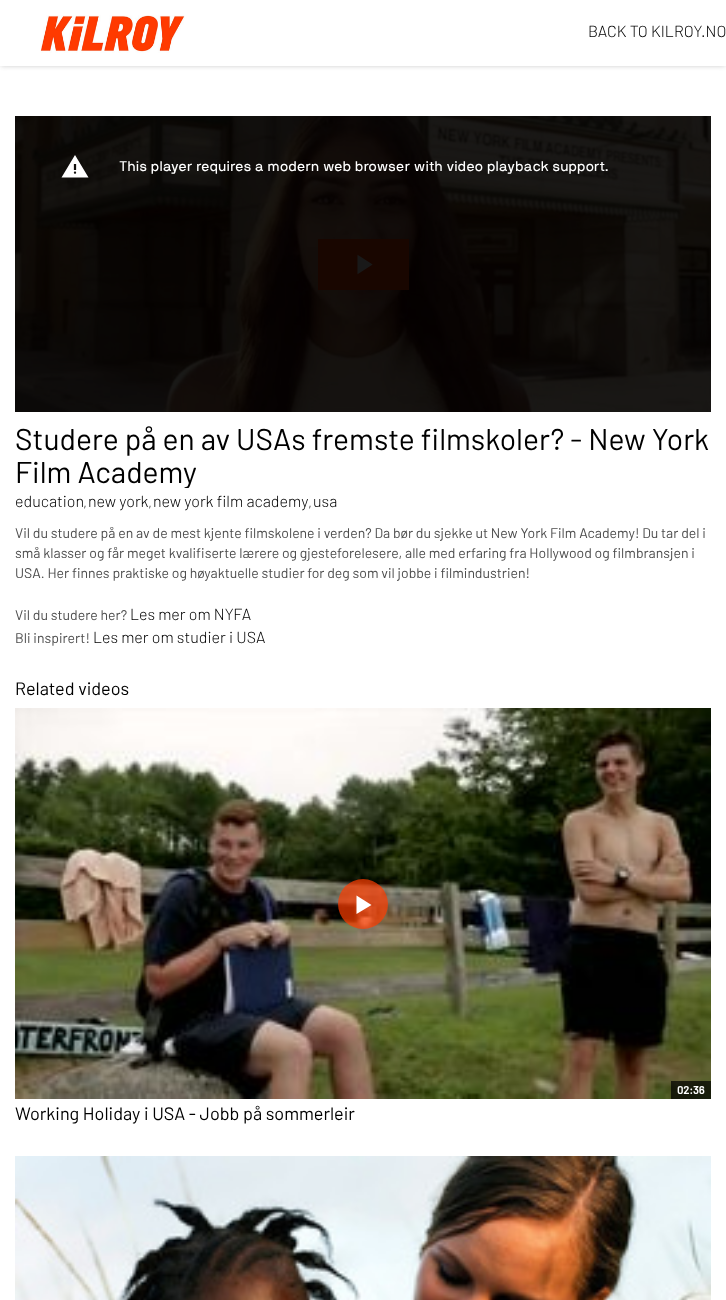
(async () => {
const canvas = document.querySelector("canvas")
canvas.width = 726
canvas.height = 1300
const c = canvas.getContext("2d")
c.miterLimit = 4
c.fontKerning = "normal"
function T(s,x,y){c.fillText(s,x,y)}
function R(x,y,w,h){c.fillRect(x,y,w,h)}
async function I(src,x,y,w,h){const img=new Image();img.src=src;await img.decode();c.drawImage(img,x,y,w,h)}
let path
c.fillStyle="#fff"
R(0,0,726,1300)
c.save()
c.beginPath()
c.rect(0,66,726,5)
c.clip()
c.fillStyle="#ccc"
c.filter="blur(2.5px)"
c.beginPath()
c.rect(1,-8,724,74)
c.fill()
c.filter="none"
c.restore()
await I("1.png",40,15,145,38)
c.font="300 16px Barlow"
c.fillStyle="#000"
T("BACK TO KILROY.NO",588,37)
await I("2.png",15,116,696,296)
c.font="30px Barlow"
T("Studere på en av USAs fremste filmskoler? - New York",15,450)
c.save()
c.beginPath()
c.rect(15,422,696,66)
c.clip()
T("Film Academy",15,483)
c.restore()
c.font="300 16px Barlow"
T("education",15,507)
c.font="12px 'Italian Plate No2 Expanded'"
c.fillStyle="#4d4d4d"
T(",",84,507)
c.font="300 16px Barlow"
c.fillStyle="#000"
T("new york",88,507)
c.font="12px 'Italian Plate No2 Expanded'"
c.fillStyle="#4d4d4d"
T(",",149,507)
c.font="300 16px Barlow"
c.fillStyle="#000"
T("new york film academy",153,507)
c.font="12px 'Italian Plate No2 Expanded'"
c.fillStyle="#4d4d4d"
T(",",309,507)
c.font="300 16px Barlow"
c.fillStyle="#000"
T("usa",313,507)
c.font="14px Barlow"
c.fillStyle="#4d4d4d"
T("Vil du studere på en av de mest kjente filmskolene i verden? Da bør du sjekke ut New York Film Academy! Du tar del i",15,538)
T("små klasser og får meget kvalifiserte lærere og gjesteforelesere, alle med erfaring fra Hollywood og filmbransjen i",15,558)
T("USA. Her finnes praktiske og høyaktuelle studier for deg som vil jobbe i filmindustrien!",15,578)
T("Vil du studere her?",15,620)
c.font="300 16px Barlow"
c.fillStyle="#000"
T("Les mer om NYFA",130,620)
c.font="14px Barlow"
c.fillStyle="#4d4d4d"
T("Bli inspirert!",15,643)
c.font="300 16px Barlow"
c.fillStyle="#000"
T("Les mer om studier i USA",93,643)
c.font="18px Barlow"
T("Related videos",15,695)
await I("3.png",15,708,696,391)
c.fillStyle="#ff3c00b3"
c.beginPath()
c.arc(363,904,25,0,7)
c.fill()
c.fillStyle="#fff"
path = new Path2D("M356.5 914l15-9l-15-9.5z")
c.fill(path)
c.fillStyle="#000000b3"
R(671,1081,40,18)
c.font="bold 11px Barlow"
c.fillStyle="#fff"
T("02:36",677,1094)
c.font="18px Barlow"
c.fillStyle="#000"
T("Working Holiday i USA - Jobb på sommerleir",15,1120)
await I("4.png",15,1156,696,144)
})()
